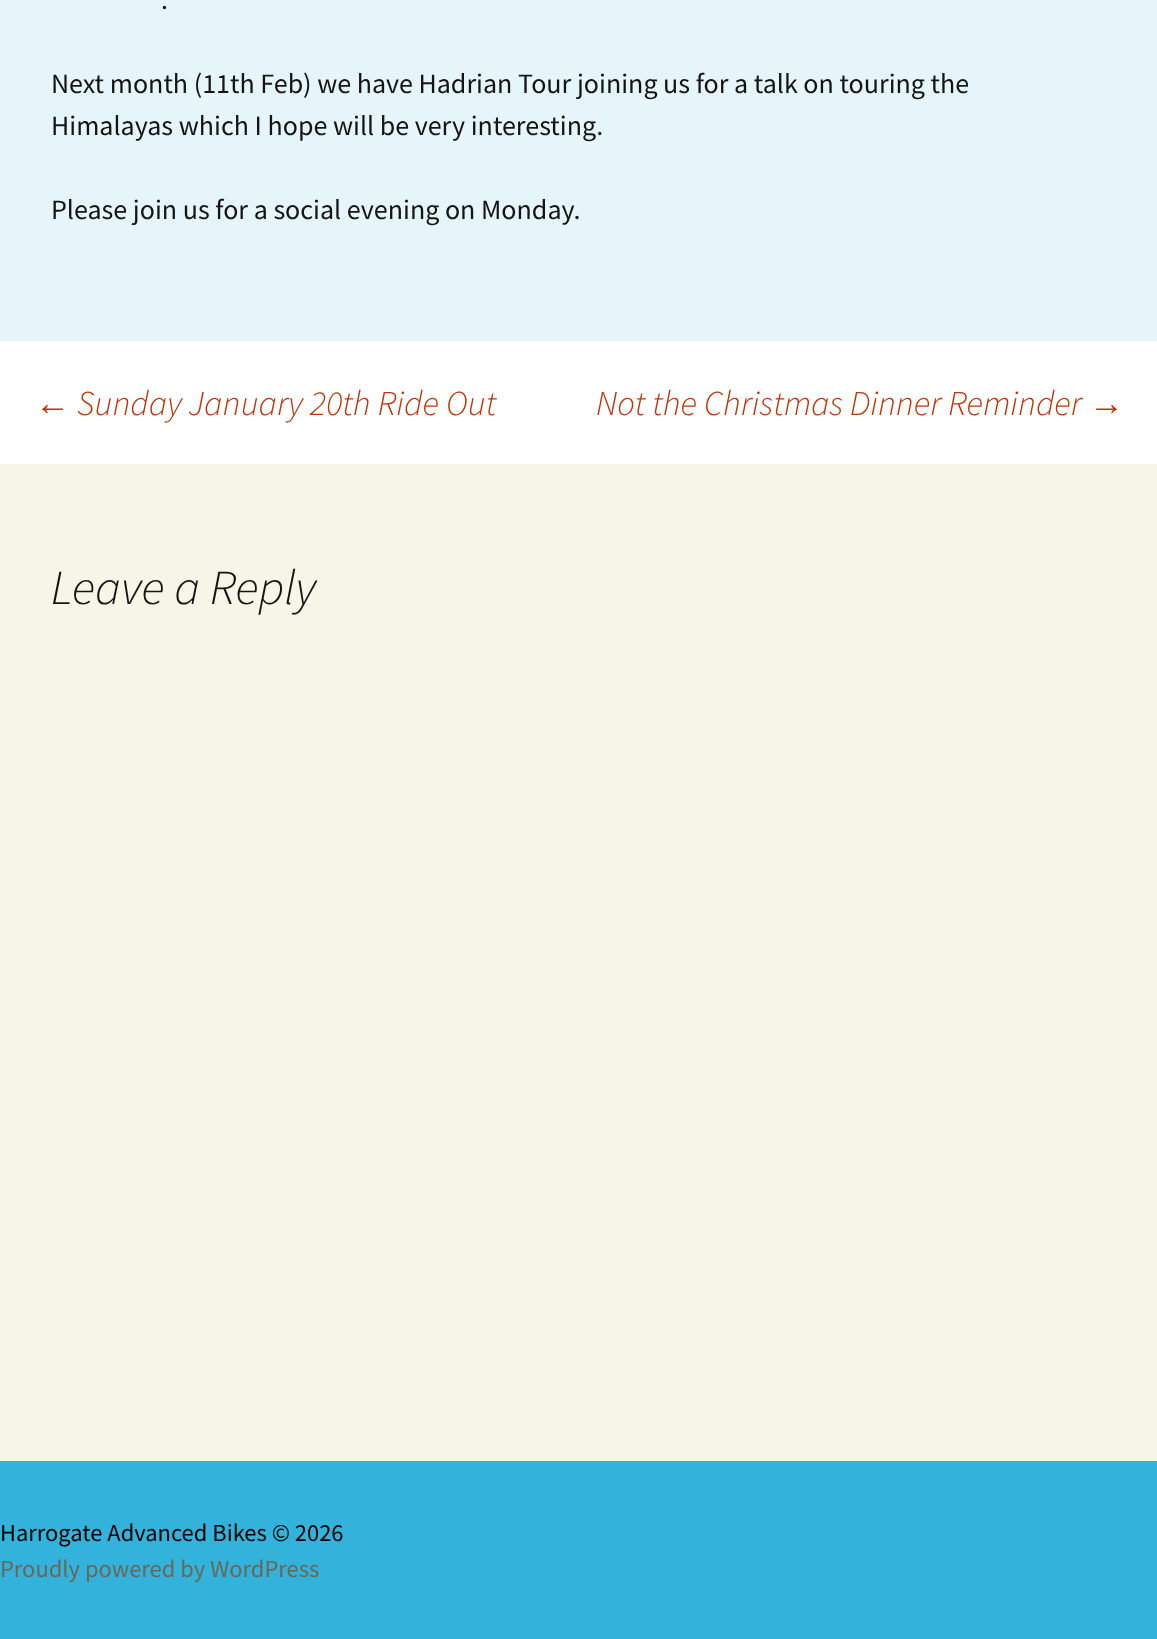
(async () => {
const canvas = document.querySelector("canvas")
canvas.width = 1157
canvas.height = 1639
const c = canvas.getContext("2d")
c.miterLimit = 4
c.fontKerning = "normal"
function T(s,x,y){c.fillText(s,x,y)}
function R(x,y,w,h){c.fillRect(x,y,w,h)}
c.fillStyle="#33b3db"
R(0,0,1157,1639)
c.fillStyle="#e5f5fa"
R(0,0,1157,341)
c.font="28px Source Sans Pro"
c.fillStyle="#141412"
T(".",161,9)
T("Next month (11th Feb) we have Hadrian Tour joining us for a talk on touring the",51,93)
T("Himalayas which I hope will be very interesting.",51,135)
T("Please join us for a social evening on Monday.",51,219)
c.fillStyle="#fff"
R(0,341,1157,123)
c.font="italic 35px Liberation Sans"
c.fillStyle="#bc360a"
T("←",35,415)
c.font="italic 300 35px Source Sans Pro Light"
T("Sunday January 20th Ride Out",77,415)
T("Not the Christmas Dinner Reminder",596,415)
c.font="italic 35px Liberation Sans"
T("→",1089,415)
c.fillStyle="#f7f5e7"
R(0,464,1157,997)
c.font="italic 300 49px Source Sans Pro Light"
c.fillStyle="#141412"
T("Leave a Reply",51,604)
c.font="24.5px Source Sans Pro"
c.fillStyle="#000"
T("Harrogate Advanced Bikes © 2026",0,1541)
c.fillStyle="#686758"
T("Proudly powered by WordPress",0,1577)
})()
